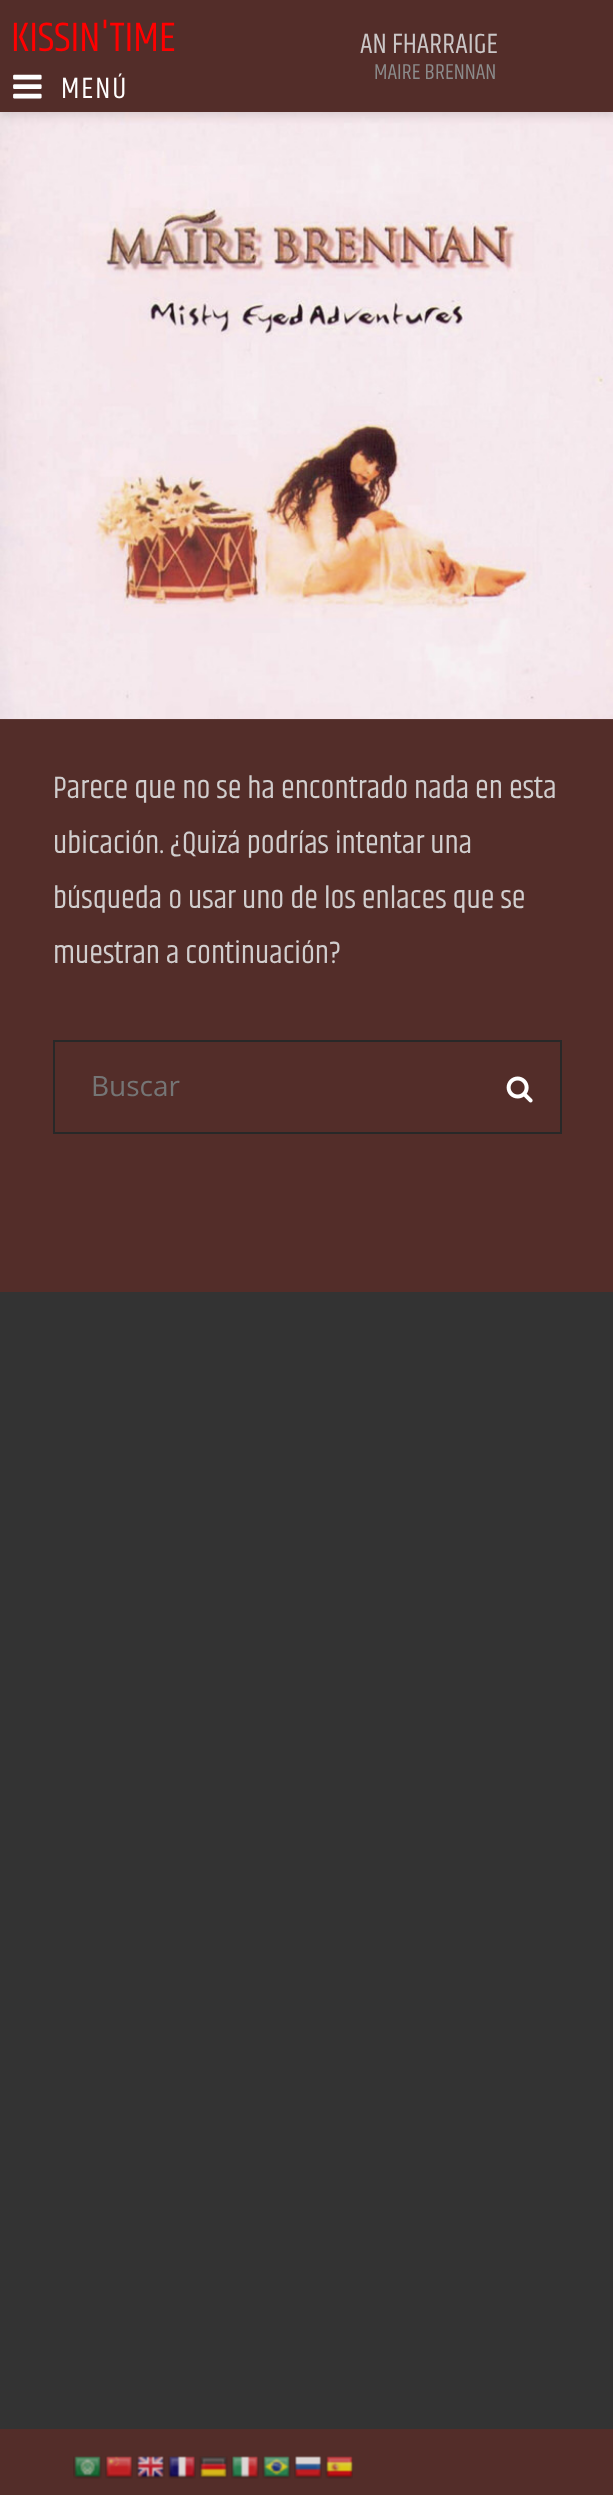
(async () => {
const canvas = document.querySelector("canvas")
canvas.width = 613
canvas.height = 2495
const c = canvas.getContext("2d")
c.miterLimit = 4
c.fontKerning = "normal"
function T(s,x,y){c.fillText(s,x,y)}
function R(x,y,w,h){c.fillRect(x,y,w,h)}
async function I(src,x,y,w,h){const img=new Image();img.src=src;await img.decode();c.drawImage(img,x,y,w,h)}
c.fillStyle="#333"
R(0,0,613,2495)
c.fillStyle="#532d29"
R(0,719,613,573)
await I("2.png",0,112,613,608)
c.fillStyle="#0000001a"
c.filter="blur(4.5px)"
c.beginPath()
c.rect(0,4,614,112)
c.fill()
c.filter="none"
c.fillStyle="#532d29"
R(0,0,613,112)
c.font="42px Khand"
c.fillStyle="#f00"
T("KISSIN'TIME",11,51)
c.font="28.5px Khand"
c.fillStyle="#cbc7c7"
T("AN FHARRAIGE",360,53)
c.font="22px Khand"
c.fillStyle="#8b8b8b"
T("MAIRE BRENNAN",374,79)
await I("1.png",13,74,29,25)
c.letterSpacing="2px"
c.font="30px Khand"
c.fillStyle="#fff"
T("MENÚ",61,98)
c.letterSpacing="0px"
c.font="31.5px Khand"
c.fillStyle="#d1cece"
T("Parece que no se ha encontrado nada en esta",53,798)
T("ubicación. ¿Quizá podrías intentar una",53,853)
T("búsqueda o usar uno de los enlaces que se",53,908)
T("muestran a continuación?",53,963)
c.strokeStyle="#282828"
c.lineWidth=2
c.strokeRect(54,1041,507,92)
c.font="28px Open Sans"
c.fillStyle="#757575"
T("Buscar",91,1096)
await I("3.png",506,1076,27,27)
c.fillStyle="#532d29"
R(0,2429,613,66)
await I("4.png",73,2456,29,23)
await I("5.png",105,2456,28,23)
await I("6.png",136,2456,29,23)
await I("7.png",168,2456,28,23)
await I("8.png",199,2456,29,23)
await I("9.png",231,2456,28,23)
await I("10.png",262,2456,29,23)
await I("11.png",294,2456,28,23)
await I("12.png",325,2456,28,23)
})()
